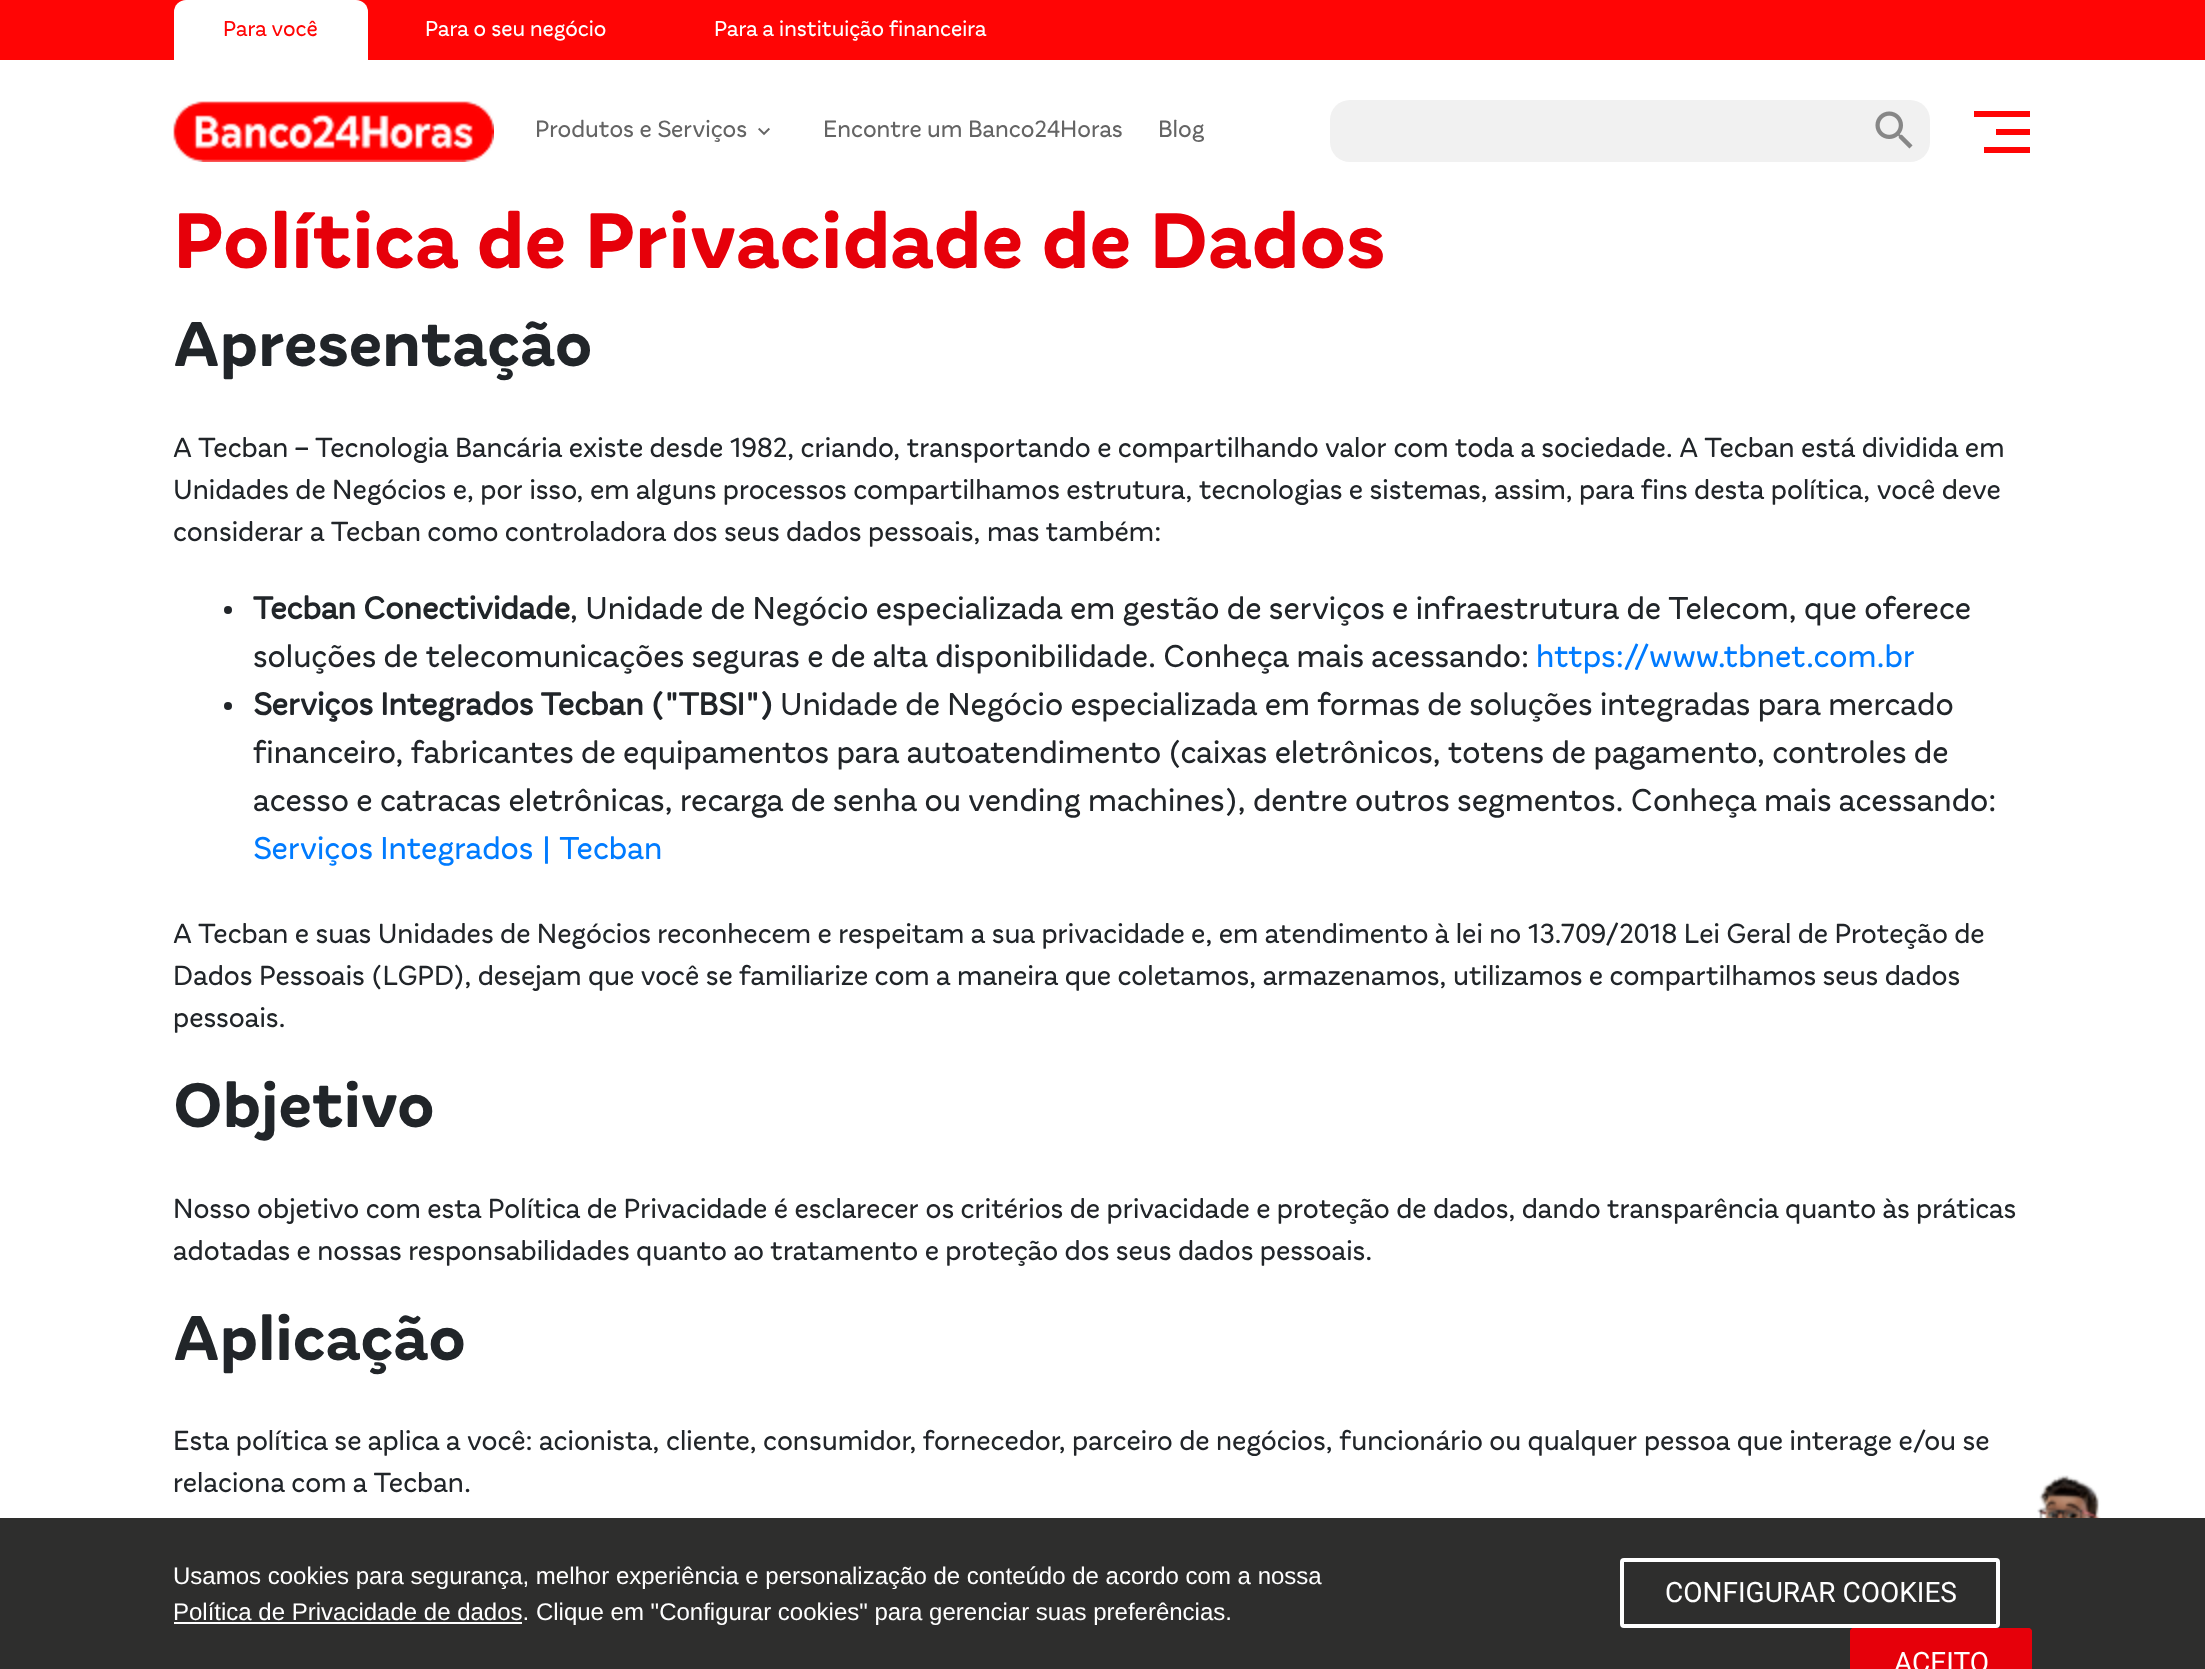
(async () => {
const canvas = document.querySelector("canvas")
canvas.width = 2205
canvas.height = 1669
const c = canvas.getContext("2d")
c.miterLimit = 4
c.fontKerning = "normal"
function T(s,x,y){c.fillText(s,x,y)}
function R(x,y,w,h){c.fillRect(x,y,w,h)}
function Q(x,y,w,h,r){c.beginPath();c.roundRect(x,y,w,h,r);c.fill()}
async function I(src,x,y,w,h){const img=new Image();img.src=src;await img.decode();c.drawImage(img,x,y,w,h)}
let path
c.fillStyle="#fff"
R(0,0,2205,1669)
c.fillStyle="#ff0505"
R(0,0,2205,60)
c.fillStyle="#fff"
c.beginPath()
c.roundRect(174,0,194,60,[12,12,0,0])
c.fill()
c.font="22px 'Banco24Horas'"
c.fillStyle="#ff0505"
T("Para você",223,36)
c.fillStyle="#fff"
T("Para o seu negócio",425,36)
T("Para a instituição financeira",714,36)
await I("1.png",173,101,321,61)
c.font="24px 'Banco24Horas'"
c.fillStyle="#646464"
T("Produtos e Serviços",535,137)
await I("2.png",758,127,12,9)
T("Encontre um Banco24Horas",823,137)
T("Blog",1158,137)
c.fillStyle="#f1f1f1"
Q(1330,100,600,62,20)
await I("3.png",1875,111,38,38)
c.fillStyle="#ff0505"
R(1974,111,56,6)
R(1996,129,34,6)
R(1984,147,46,6)
c.font="bold 80px 'Banco24Horas'"
c.fillStyle="#e6000a"
T("Política de Privacidade de Dados",173,268)
c.font="bold 64px 'Banco24Horas'"
c.fillStyle="#212529"
T("Apresentação",173,366)
c.font="28px 'Banco24Horas'"
T("A Tecban – Tecnologia Bancária existe desde 1982, criando, transportando e compartilhando valor com toda a sociedade. A Tecban está dividida em",173,457)
T("Unidades de Negócios e, por isso, em alguns processos compartilhamos estrutura, tecnologias e sistemas, assim, para fins desta política, você deve",173,499)
T("considerar a Tecban como controladora dos seus dados pessoais, mas também:",173,541)
c.beginPath()
c.arc(228,610,4,0,7)
c.fill()
c.font="bold 32px 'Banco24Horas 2'"
T("Tecban Conectividade",253,619)
c.font="32px 'Banco24Horas'"
T(", Unidade de Negócio especializada em gestão de serviços e infraestrutura de Telecom, que oferece",570,619)
T("soluções de telecomunicações seguras e de alta disponibilidade. Conheça mais acessando:",253,667)
c.fillStyle="#007bff"
T("https://www.tbnet.com.br",1536,667)
c.fillStyle="#212529"
c.beginPath()
c.arc(228,706,4,0,7)
c.fill()
c.font="bold 32px 'Banco24Horas 2'"
T("Serviços Integrados Tecban (\"TBSI\")",253,715)
c.font="32px 'Banco24Horas'"
T("Unidade de Negócio especializada em formas de soluções integradas para mercado",780,715)
T("financeiro, fabricantes de equipamentos para autoatendimento (caixas eletrônicos, totens de pagamento, controles de",253,763)
T("acesso e catracas eletrônicas, recarga de senha ou vending machines), dentre outros segmentos. Conheça mais acessando:",253,811)
c.fillStyle="#007bff"
T("Serviços Integrados | Tecban",253,859)
c.font="28px 'Banco24Horas'"
c.fillStyle="#212529"
T("A Tecban e suas Unidades de Negócios reconhecem e respeitam a sua privacidade e, em atendimento à lei no 13.709/2018 Lei Geral de Proteção de",173,943)
T("Dados Pessoais (LGPD), desejam que você se familiarize com a maneira que coletamos, armazenamos, utilizamos e compartilhamos seus dados",173,985)
T("pessoais.",173,1027)
c.font="bold 64px 'Banco24Horas'"
T("Objetivo",173,1127)
c.font="28px 'Banco24Horas'"
T("Nosso objetivo com esta Política de Privacidade é esclarecer os critérios de privacidade e proteção de dados, dando transparência quanto às práticas",173,1218)
T("adotadas e nossas responsabilidades quanto ao tratamento e proteção dos seus dados pessoais.",173,1260)
c.font="bold 64px 'Banco24Horas'"
T("Aplicação",173,1360)
c.font="28px 'Banco24Horas'"
T("Esta política se aplica a você: acionista, cliente, consumidor, fornecedor, parceiro de negócios, funcionário ou qualquer pessoa que interage e/ou se",173,1450)
T("relaciona com a Tecban.",173,1492)
await I("4.png",2037,1475,64,43)
c.fillStyle="#2e2e2d"
R(0,1518,2205,151)
c.font="24px Liberation Sans"
c.fillStyle="#fff"
T("Usamos cookies para segurança, melhor experiência e personalização de conteúdo de acordo com a nossa",173,1584)
R(174,1622,348,2)
T("Política de Privacidade de dados. Clique em \"Configurar cookies\" para gerenciar suas preferências.",173,1620)
c.beginPath()
c.roundRect(1622,1560,376,66,2)
c.strokeStyle="#fff"
c.lineWidth=4
c.stroke()
c.font="28px Roboto"
T("CONFIGURAR COOKIES",1665,1602)
c.fillStyle="#e6000a"
path = new Path2D("M1854 1628h174c2 0 4 2 4 4v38h-182v-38c0-2 2-4 4-4z")
c.fill(path)
c.beginPath()
c.roundRect(1852,1630,178,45,2)
c.strokeStyle="#e6000a"
c.stroke()
c.fillStyle="#fff"
T("ACEITO",1894,1672)
})()
